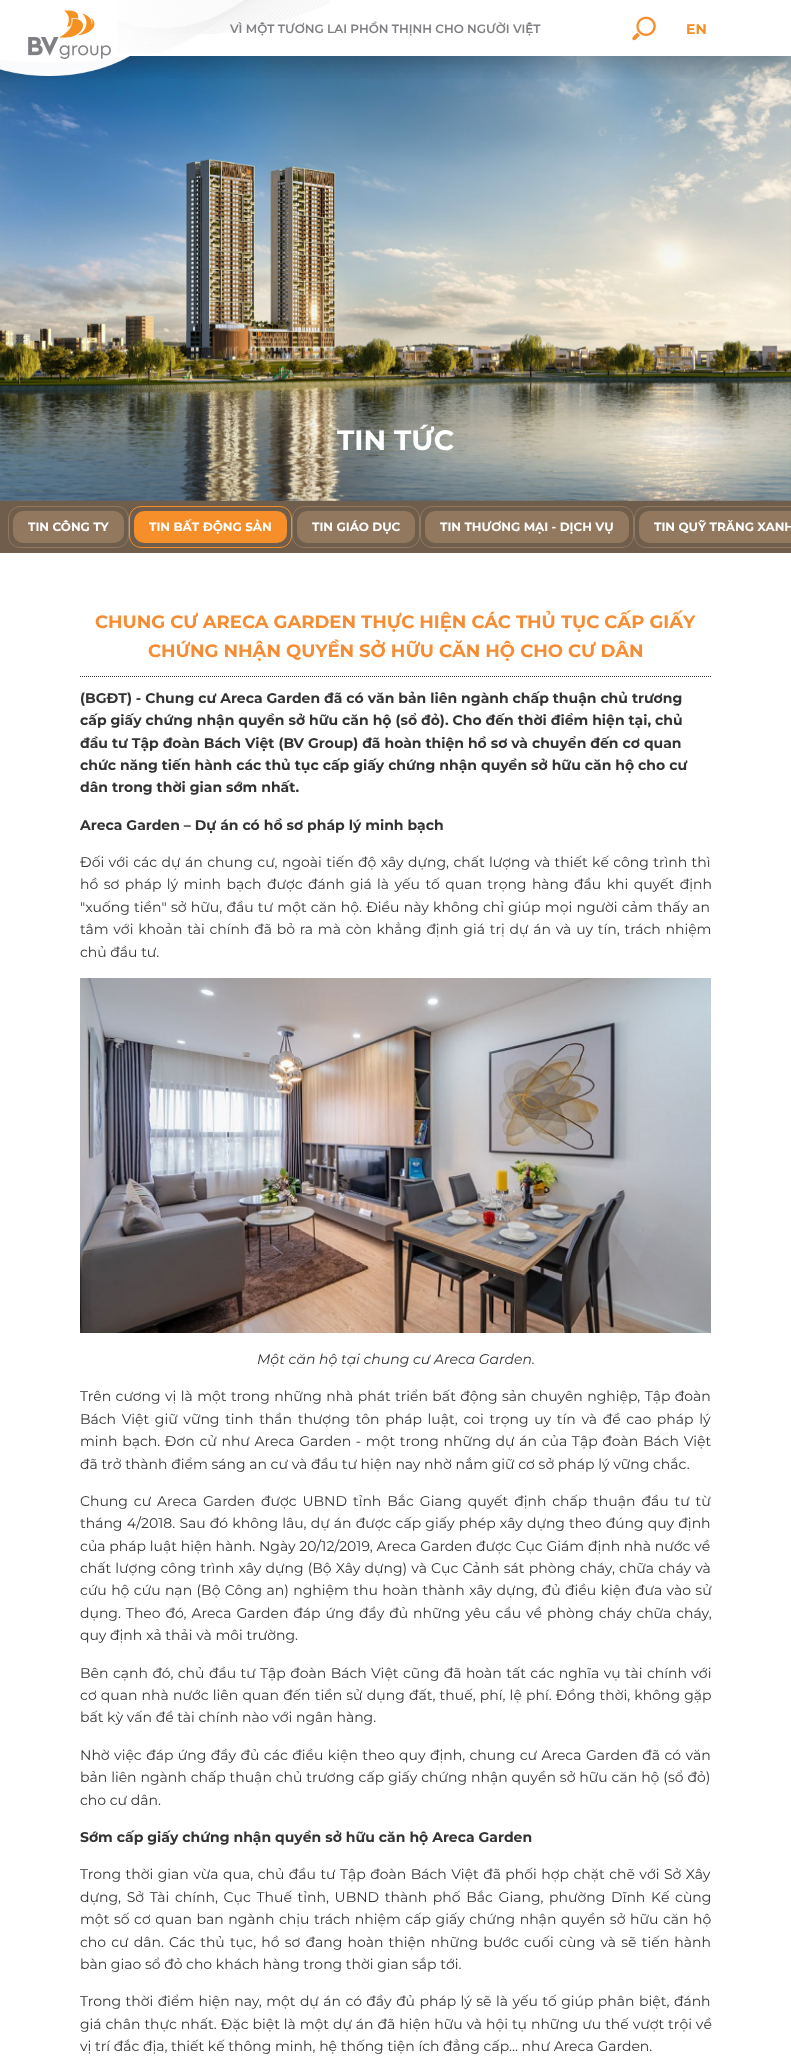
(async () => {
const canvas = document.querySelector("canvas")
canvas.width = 791
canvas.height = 2071
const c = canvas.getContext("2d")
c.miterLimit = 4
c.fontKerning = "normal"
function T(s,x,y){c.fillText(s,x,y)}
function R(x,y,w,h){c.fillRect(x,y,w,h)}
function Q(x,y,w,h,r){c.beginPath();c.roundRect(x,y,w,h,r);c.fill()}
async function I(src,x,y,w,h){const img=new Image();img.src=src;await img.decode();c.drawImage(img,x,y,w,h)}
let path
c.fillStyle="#fff"
R(0,0,791,2071)
c.fillStyle="#6e5e4b"
R(0,56,791,497)
await I("5.png",0,56,791,445)
c.save()
c.beginPath()
c.rect(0,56,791,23)
c.clip()
c.fillStyle="#00000033"
c.filter="blur(10px)"
c.beginPath()
c.rect(0,10,791,56)
c.fill()
c.filter="none"
c.restore()
await I("4.png",0,56,130,20)
await I("1.png",28,10,83,49)
await I("2.png",117,0,213,53)
c.font="600 12px Montserrat"
c.fillStyle="#808084"
T("VÌ MỘT TƯƠNG LAI PHỒN THỊNH CHO NGƯỜI VIỆT",230,33)
await I("3.png",632,16,24,25)
c.font="bold 14px Montserrat"
c.fillStyle="#f68e2a"
T("EN",686,34)
c.font="bold 28px Montserrat"
c.fillStyle="#fff"
T("TIN TỨC",337,450)
c.fillStyle="#92785f"
Q(13,511,111,32,10)
c.beginPath()
c.roundRect(8.5,506.5,120,41,11.5)
c.strokeStyle="#92785f"
c.stroke()
c.font="bold 12px Montserrat"
c.fillStyle="#fff"
T("TIN CÔNG TY",28,531)
c.fillStyle="#f68e2a"
Q(134,511,153,32,10)
c.beginPath()
c.roundRect(129.5,506.5,162,41,11.5)
c.strokeStyle="#f68e2a"
c.stroke()
c.fillStyle="#fff"
T("TIN BẤT ĐỘNG SẢN",149,531)
c.fillStyle="#92785f"
Q(297,511,118,32,10)
c.beginPath()
c.roundRect(292.5,506.5,127,41,11.5)
c.strokeStyle="#92785f"
c.stroke()
c.fillStyle="#fff"
T("TIN GIÁO DỤC",312,531)
c.fillStyle="#92785f"
Q(425,511,204,32,10)
c.beginPath()
c.roundRect(420.5,506.5,213,41,11.5)
c.stroke()
c.fillStyle="#fff"
T("TIN THƯƠNG MẠI - DỊCH VỤ",440,531)
c.fillStyle="#92785f"
c.beginPath()
c.roundRect(639,511,152,32,[10,0,0,10])
c.fill()
c.beginPath()
c.roundRect(634.5,506.5,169,41,11.5)
c.stroke()
c.fillStyle="#fff"
T("TIN QUỸ TRĂNG XANH",654,531)
path = new Path2D("M80 676.5h631")
c.strokeStyle="#333"
c.setLineDash([1,1])
c.stroke(path)
c.font="bold 18px Montserrat"
c.fillStyle="#f68d34"
T("CHUNG CƯ ARECA GARDEN THỰC HIỆN CÁC THỦ TỤC CẤP GIẤY",95,628)
T("CHỨNG NHẬN QUYỀN SỞ HỮU CĂN HỘ CHO CƯ DÂN",148,657)
c.font="bold 14px Montserrat"
c.fillStyle="#333"
T("(BGĐT) - Chung cư Areca Garden đã có văn bản liên ngành chấp thuận chủ trương",80,703)
T("cấp giấy chứng nhận quyền sở hữu căn hộ (sổ đỏ). Cho đến thời điểm hiện tại, chủ",80,725)
T("đầu tư Tập đoàn Bách Việt (BV Group) đã hoàn thiện hồ sơ và chuyển đến cơ quan",80,748)
T("chức năng tiến hành các thủ tục cấp giấy chứng nhận quyền sở hữu căn hộ cho cư",80,770)
T("dân trong thời gian sớm nhất.",80,792)
T("Areca Garden – Dự án có hồ sơ pháp lý minh bạch",80,830)
c.wordSpacing="0.75px"
c.font="14px Montserrat"
T("Đối với các dự án chung cư, ngoài tiến độ xây dựng, chất lượng và thiết kế công trình thì",80,867)
c.wordSpacing="1.75px"
T("hồ sơ pháp lý minh bạch được đánh giá là yếu tố quan trọng hàng đầu khi quyết định",80,889)
c.wordSpacing="0.6px"
T("\"xuống tiền\" sở hữu, đầu tư một căn hộ. Điều này không chỉ giúp mọi người cảm thấy an",80,912)
c.wordSpacing="1.1px"
T("tâm với khoản tài chính đã bỏ ra mà còn khẳng định giá trị dự án và uy tín, trách nhiệm",80,934)
c.wordSpacing="0px"
T("chủ đầu tư.",80,957)
await I("6.png",80,978,631,355)
c.font="italic 14px Montserrat"
T("Một căn hộ tại chung cư Areca Garden.",257,1364)
c.wordSpacing="0.75px"
c.font="14px Montserrat"
T("Trên cương vị là một trong những nhà phát triển bất động sản chuyên nghiệp, Tập đoàn",80,1401)
c.wordSpacing="2px"
T("Bách Việt giữ vững tinh thần thượng tôn pháp luật, coi trọng uy tín và đề cao pháp lý",80,1424)
c.wordSpacing="1px"
T("minh bạch. Đơn cử như Areca Garden - một trong những dự án của Tập đoàn Bách Việt",80,1446)
c.wordSpacing="0px"
T("đã trở thành điểm sáng an cư và đầu tư hiện nay nhờ nắm giữ cơ sở pháp lý vững chắc.",80,1469)
c.wordSpacing="2.25px"
T("Chung cư Areca Garden được UBND tỉnh Bắc Giang quyết định chấp thuận đầu tư từ",80,1506)
c.wordSpacing="0.5px"
T("tháng 4/2018. Sau đó không lâu, dự án được cấp giấy phép xây dựng theo đúng quy định",80,1528)
c.wordSpacing="0.1px"
T("của pháp luật hiện hành. Ngày 20/12/2019, Areca Garden được Cục Giám định nhà nước về",80,1551)
c.wordSpacing="0.5px"
T("chất lượng công trình xây dựng (Bộ Xây dựng) và Cục Cảnh sát phòng cháy, chữa cháy và",80,1573)
c.wordSpacing="0.7px"
T("cứu hộ cứu nạn (Bộ Công an) nghiệm thu hoàn thành xây dựng, đủ điều kiện đưa vào sử",80,1595)
c.wordSpacing="1.25px"
T("dụng. Theo đó, Areca Garden đáp ứng đầy đủ những yêu cầu về phòng cháy chữa cháy,",80,1618)
c.wordSpacing="0px"
T("quy định xả thải và môi trường.",80,1640)
c.wordSpacing="0.75px"
T("Bên cạnh đó, chủ đầu tư Tập đoàn Bách Việt cũng đã hoàn tất các nghĩa vụ tài chính với",80,1678)
c.wordSpacing="0.5px"
T("cơ quan nhà nước liên quan đến tiền sử dụng đất, thuế, phí, lệ phí. Đồng thời, không gặp",80,1700)
c.wordSpacing="0px"
T("bất kỳ vấn đề tài chính nào với ngân hàng.",80,1722)
c.wordSpacing="0.75px"
T("Nhờ việc đáp ứng đầy đủ các điều kiện theo quy định, chung cư Areca Garden đã có văn",80,1760)
c.wordSpacing="0.25px"
T("bản liên ngành chấp thuận chủ trương cấp giấy chứng nhận quyền sở hữu căn hộ (sổ đỏ)",80,1782)
c.wordSpacing="0px"
T("cho cư dân.",80,1805)
c.font="bold 14px Montserrat"
T("Sớm cấp giấy chứng nhận quyền sở hữu căn hộ Areca Garden",80,1842)
c.wordSpacing="0.8px"
c.font="14px Montserrat"
T("Trong thời gian vừa qua, chủ đầu tư Tập đoàn Bách Việt đã phối hợp chặt chẽ với Sở Xây",80,1879)
c.wordSpacing="2px"
T("dựng, Sở Tài chính, Cục Thuế tỉnh, UBND thành phố Bắc Giang, phường Dĩnh Kế cùng",80,1902)
c.wordSpacing="0.9px"
T("một số cơ quan ban ngành chịu trách nhiệm cấp giấy chứng nhận quyền sở hữu căn hộ",80,1924)
c.wordSpacing="1.5px"
T("cho cư dân. Các thủ tục, hồ sơ đang hoàn thiện những bước cuối cùng và sẽ tiến hành",80,1947)
c.wordSpacing="0px"
T("bàn giao sổ đỏ cho khách hàng trong thời gian sắp tới.",80,1969)
c.wordSpacing="0.75px"
T("Trong thời điểm hiện nay, một dự án có đầy đủ pháp lý sẽ là yếu tố giúp phân biệt, đánh",80,2006)
c.wordSpacing="0.25px"
T("giá chân thực nhất. Đặc biệt là một dự án đã hiện hữu và hội tụ những ưu thế vượt trội về",80,2029)
c.wordSpacing="0px"
T("vị trí đắc địa, thiết kế thông minh, hệ thống tiện ích đẳng cấp... như Areca Garden.",80,2051)
})()
